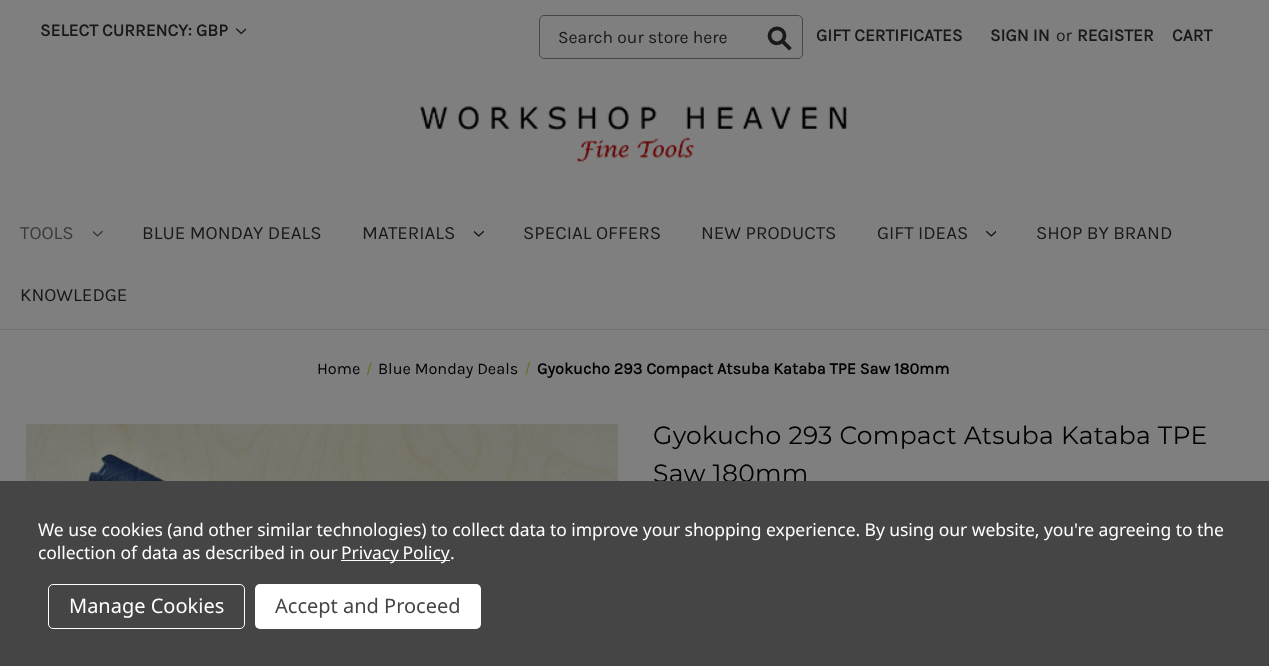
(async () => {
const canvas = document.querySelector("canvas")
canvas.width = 1269
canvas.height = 666
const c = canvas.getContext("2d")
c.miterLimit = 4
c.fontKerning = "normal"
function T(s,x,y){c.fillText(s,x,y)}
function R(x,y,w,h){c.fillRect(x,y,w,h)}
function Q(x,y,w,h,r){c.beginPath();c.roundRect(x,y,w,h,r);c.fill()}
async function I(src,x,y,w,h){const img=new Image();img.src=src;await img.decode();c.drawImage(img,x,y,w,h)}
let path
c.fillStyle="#fff"
R(0,0,1269,666)
c.fillStyle="#e5e5e5"
R(0,329,1269,1)
c.font="bold 17.5px Karla"
c.fillStyle="#333"
T("SELECT CURRENCY: GBP",40,36)
await I("1.png",236,28,10,7)
c.beginPath()
c.roundRect(539.5,15.5,263,43,4.5)
c.strokeStyle="#8f8f8f"
c.stroke()
c.font="17.5px Karla"
T("Search our store here",558,43)
c.font="bold 32px DejaVu Sans"
c.save()
c.translate(779,55)
c.rotate(-45 * Math.PI / 180)
c.fillText("⚲",0,0)
c.restore()
c.font="bold 17.5px Karla"
T("GIFT CERTIFICATES",816,41)
T("SIGN IN",990,41)
c.font="17.5px Karla"
T("or",1056,41)
c.font="bold 17.5px Karla"
T("REGISTER",1077,41)
T("CART",1172,41)
await I("2.png",419,106,428,56)
c.font="18.75px Karla"
c.fillStyle="#757575"
T("TOOLS",20,239)
await I("3.png",93,230,10,7)
c.fillStyle="#333"
T("BLUE MONDAY DEALS",142,239)
T("MATERIALS",362,239)
await I("4.png",474,230,10,7)
T("SPECIAL OFFERS",523,239)
T("NEW PRODUCTS",701,239)
T("GIFT IDEAS",877,239)
await I("5.png",986,230,10,7)
T("SHOP BY BRAND",1036,239)
T("KNOWLEDGE",20,301)
c.font="16.25px Karla"
c.fillStyle="#000"
T("Home",317,374)
c.fillStyle="#aae43c"
path = new Path2D("M370.5 362l1 .5l-3.5 12.5l-1-.5z")
c.fill(path)
c.fillStyle="#000"
T("Blue Monday Deals",378,374)
c.fillStyle="#aae43c"
path = new Path2D("M529 362l1 .5l-3.5 12.5l-1-.5z")
c.fill(path)
c.font="bold 16.25px Karla"
c.fillStyle="#000"
T("Gyokucho 293 Compact Atsuba Kataba TPE Saw 180mm",537,374)
await I("6.png",26,424,592,57)
c.letterSpacing="0.3px"
c.font="25px Montserrat"
T("Gyokucho 293 Compact Atsuba Kataba TPE",653,444)
T("Saw 180mm",653,482)
c.fillStyle="#454545"
R(0,481,1269,185)
c.fillStyle="#00000080"
R(0,0,1269,481)
c.letterSpacing="-0.06px"
c.font="17.5px Noto Sans"
c.fillStyle="#fff"
T("We use cookies (and other similar technologies) to collect data to improve your shopping experience. By using our website, you're agreeing to the",38,536)
T("collection of data as described in our",38,559)
R(341,560,109,1)
c.wordSpacing="-1px"
T("Privacy Policy",341,559)
c.wordSpacing="0px"
T(".",450,559)
c.beginPath()
c.roundRect(48.5,584.5,196,44,4.5)
c.strokeStyle="#fff"
c.stroke()
c.letterSpacing="0px"
c.font="20px Noto Sans"
T("Manage Cookies",69,613)
Q(255,584,226,45,5)
c.fillStyle="#454545"
T("Accept and Proceed",275,613)
})()
